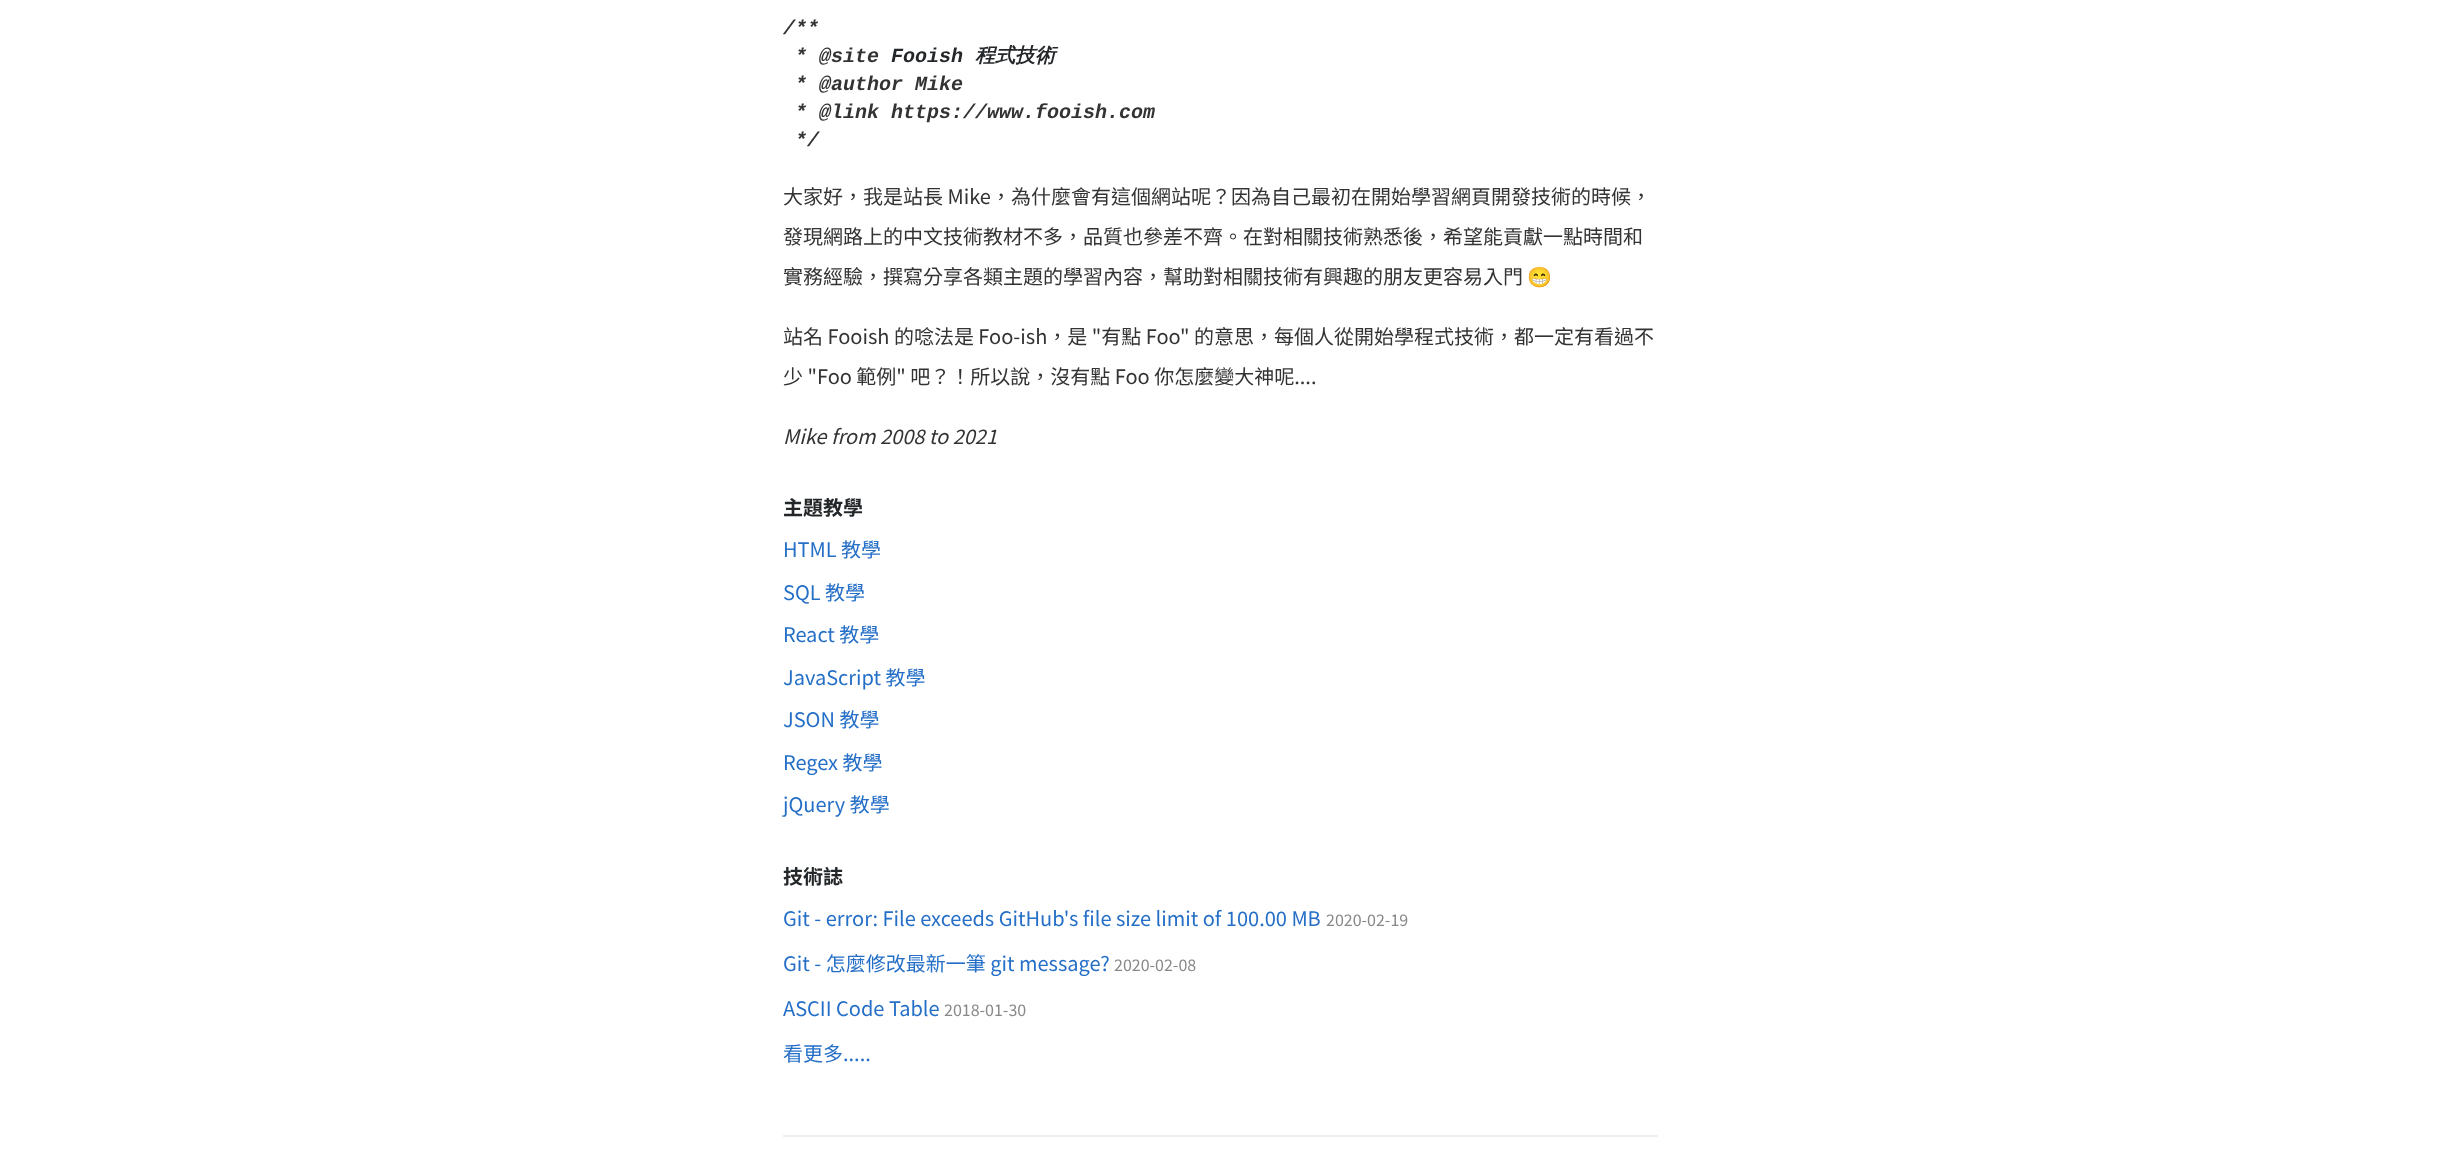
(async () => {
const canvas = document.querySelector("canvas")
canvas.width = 2439
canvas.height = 1160
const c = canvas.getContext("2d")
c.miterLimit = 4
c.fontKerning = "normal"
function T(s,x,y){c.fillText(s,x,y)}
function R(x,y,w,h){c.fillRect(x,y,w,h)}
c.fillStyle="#fff"
R(0,0,2439,1160)
c.font="italic bold 20px Liberation Mono"
c.fillStyle="#333"
T("/**",783,34)
T("* @site",795,62)
c.fillStyle="#242729"
T("Fooish",891,62)
c.font="italic bold 20px WenQuanYi Zen Hei"
T("程式技術",975,62)
c.font="italic bold 20px Liberation Mono"
c.fillStyle="#333"
T("* @author Mike",795,90)
T("* @link https://www.fooish.com",795,118)
T("*/",795,146)
c.font="20px Noto Sans TC"
T("大家好，我是站長 Mike，為什麼會有這個網站呢？因為自己最初在開始學習網頁開發技術的時候，",783,204)
T("發現網路上的中文技術教材不多，品質也參差不齊。在對相關技術熟悉後，希望能貢獻一點時間和",783,244)
T("實務經驗，撰寫分享各類主題的學習內容，幫助對相關技術有興趣的朋友更容易入門",783,284)
c.font="20px Noto Color Emoji"
T("😁",1527,284)
c.font="20px Noto Sans TC"
T("站名 Fooish 的唸法是 Foo-ish，是 \"有點 Foo\" 的意思，每個人從開始學程式技術，都一定有看過不",783,344)
T("少 \"Foo 範例\" 吧？！所以說，沒有點 Foo 你怎麼變大神呢....",783,384)
c.font="italic 20px Noto Sans TC"
T("Mike from 2008 to 2021",783,444)
c.font="bold 20px Noto Sans TC"
c.fillStyle="#242729"
T("主題教學",783,515)
c.font="20px Noto Sans TC"
c.fillStyle="#256fc7"
T("HTML 教學",783,557)
T("SQL 教學",783,600)
T("React 教學",783,642)
T("JavaScript 教學",783,685)
T("JSON 教學",783,727)
T("Regex 教學",783,770)
T("jQuery 教學",783,812)
c.font="bold 20px Noto Sans TC"
c.fillStyle="#242729"
T("技術誌",783,884)
c.font="20px Noto Sans TC"
c.fillStyle="#256fc7"
T("Git - error: File exceeds GitHub's file size limit of 100.00 MB",783,926)
c.font="16px Noto Sans TC"
c.fillStyle="#888"
T("2020-02-19",1326,926)
c.font="20px Noto Sans TC"
c.fillStyle="#256fc7"
T("Git - 怎麼修改最新一筆 git message?",783,971)
c.font="16px Noto Sans TC"
c.fillStyle="#888"
T("2020-02-08",1114,971)
c.font="20px Noto Sans TC"
c.fillStyle="#256fc7"
T("ASCII Code Table",783,1016)
c.font="16px Noto Sans TC"
c.fillStyle="#888"
T("2018-01-30",944,1016)
c.font="20px Noto Sans TC"
c.fillStyle="#256fc7"
T("看更多.....",783,1061)
c.fillStyle="#eee"
R(783,1135,875,2)
})()
